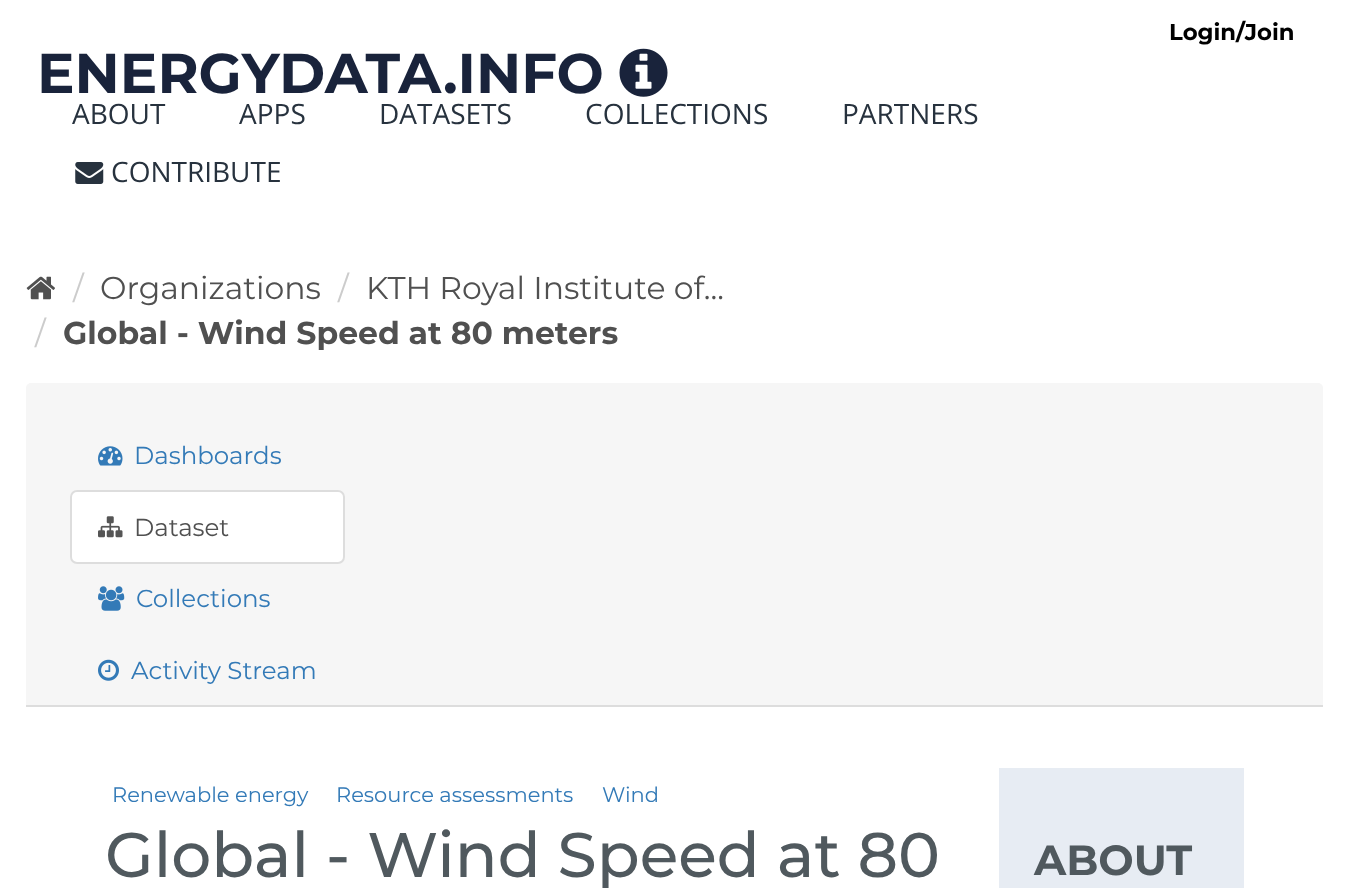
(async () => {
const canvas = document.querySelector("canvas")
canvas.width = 1348
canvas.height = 888
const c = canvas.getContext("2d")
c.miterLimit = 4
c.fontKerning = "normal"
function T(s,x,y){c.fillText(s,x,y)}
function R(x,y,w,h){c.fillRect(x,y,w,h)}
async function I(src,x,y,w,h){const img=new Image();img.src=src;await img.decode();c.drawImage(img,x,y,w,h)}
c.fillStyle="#fff"
R(0,0,1348,888)
c.font="bold 22.75px Montserrat"
c.fillStyle="#000"
T("Login/Join",1169,40)
c.font="bold 56px Montserrat"
c.fillStyle="#19233b"
T("ENERGYDATA.INFO",37,93)
await I("1.png",619,48,49,49)
c.font="28px Open Sans"
c.fillStyle="#27323e"
T("ABOUT",72,124)
T("APPS",239,124)
T("DATASETS",379,124)
T("COLLECTIONS",585,124)
T("PARTNERS",842,124)
await I("2.png",75,162,29,22)
T("CONTRIBUTE",111,182)
await I("3.png",26,276,29,24)
c.font="31.5px Montserrat"
c.fillStyle="#ccc"
T("/",73,299)
c.fillStyle="#505050"
T("Organizations",100,299)
c.fillStyle="#ccc"
T("/",338,299)
c.fillStyle="#505050"
T("KTH Royal Institute of...",366,299)
c.fillStyle="#ccc"
T("/",35,344)
c.font="bold 31.5px Montserrat"
c.fillStyle="#505050"
T("Global - Wind Speed at 80 meters",63,344)
c.fillStyle="#f6f6f6"
c.beginPath()
c.roundRect(26,383,1297,324,[5,5,0,0])
c.fill()
c.fillStyle="#ddd"
R(26,705,1297,2)
await I("4.png",98,446,25,20)
c.font="24.5px Montserrat"
c.fillStyle="#337ab7"
T("Dashboards",134,464)
c.fillStyle="#fff"
c.beginPath()
c.roundRect(71,491,273,72,6)
c.fill()
c.strokeStyle="#ddd"
c.lineWidth=2
c.stroke()
await I("5.png",98,516,25,22)
c.fillStyle="#505050"
T("Dataset",134,536)
await I("6.png",98,586,27,25)
c.fillStyle="#337ab7"
T("Collections",136,607)
await I("7.png",98,659,21,22)
T("Activity Stream",131,679)
c.font="21px Montserrat"
T("Renewable energy",112,802)
T("Resource assessments",336,802)
T("Wind",602,802)
c.font="500 63px Montserrat"
c.fillStyle="#50595e"
T("Global - Wind Speed at 80",105,877)
c.fillStyle="#e7ecf3"
R(999,768,245,120)
c.font="bold 42px Montserrat"
c.fillStyle="#50595e"
T("ABOUT",1034,875)
})()
